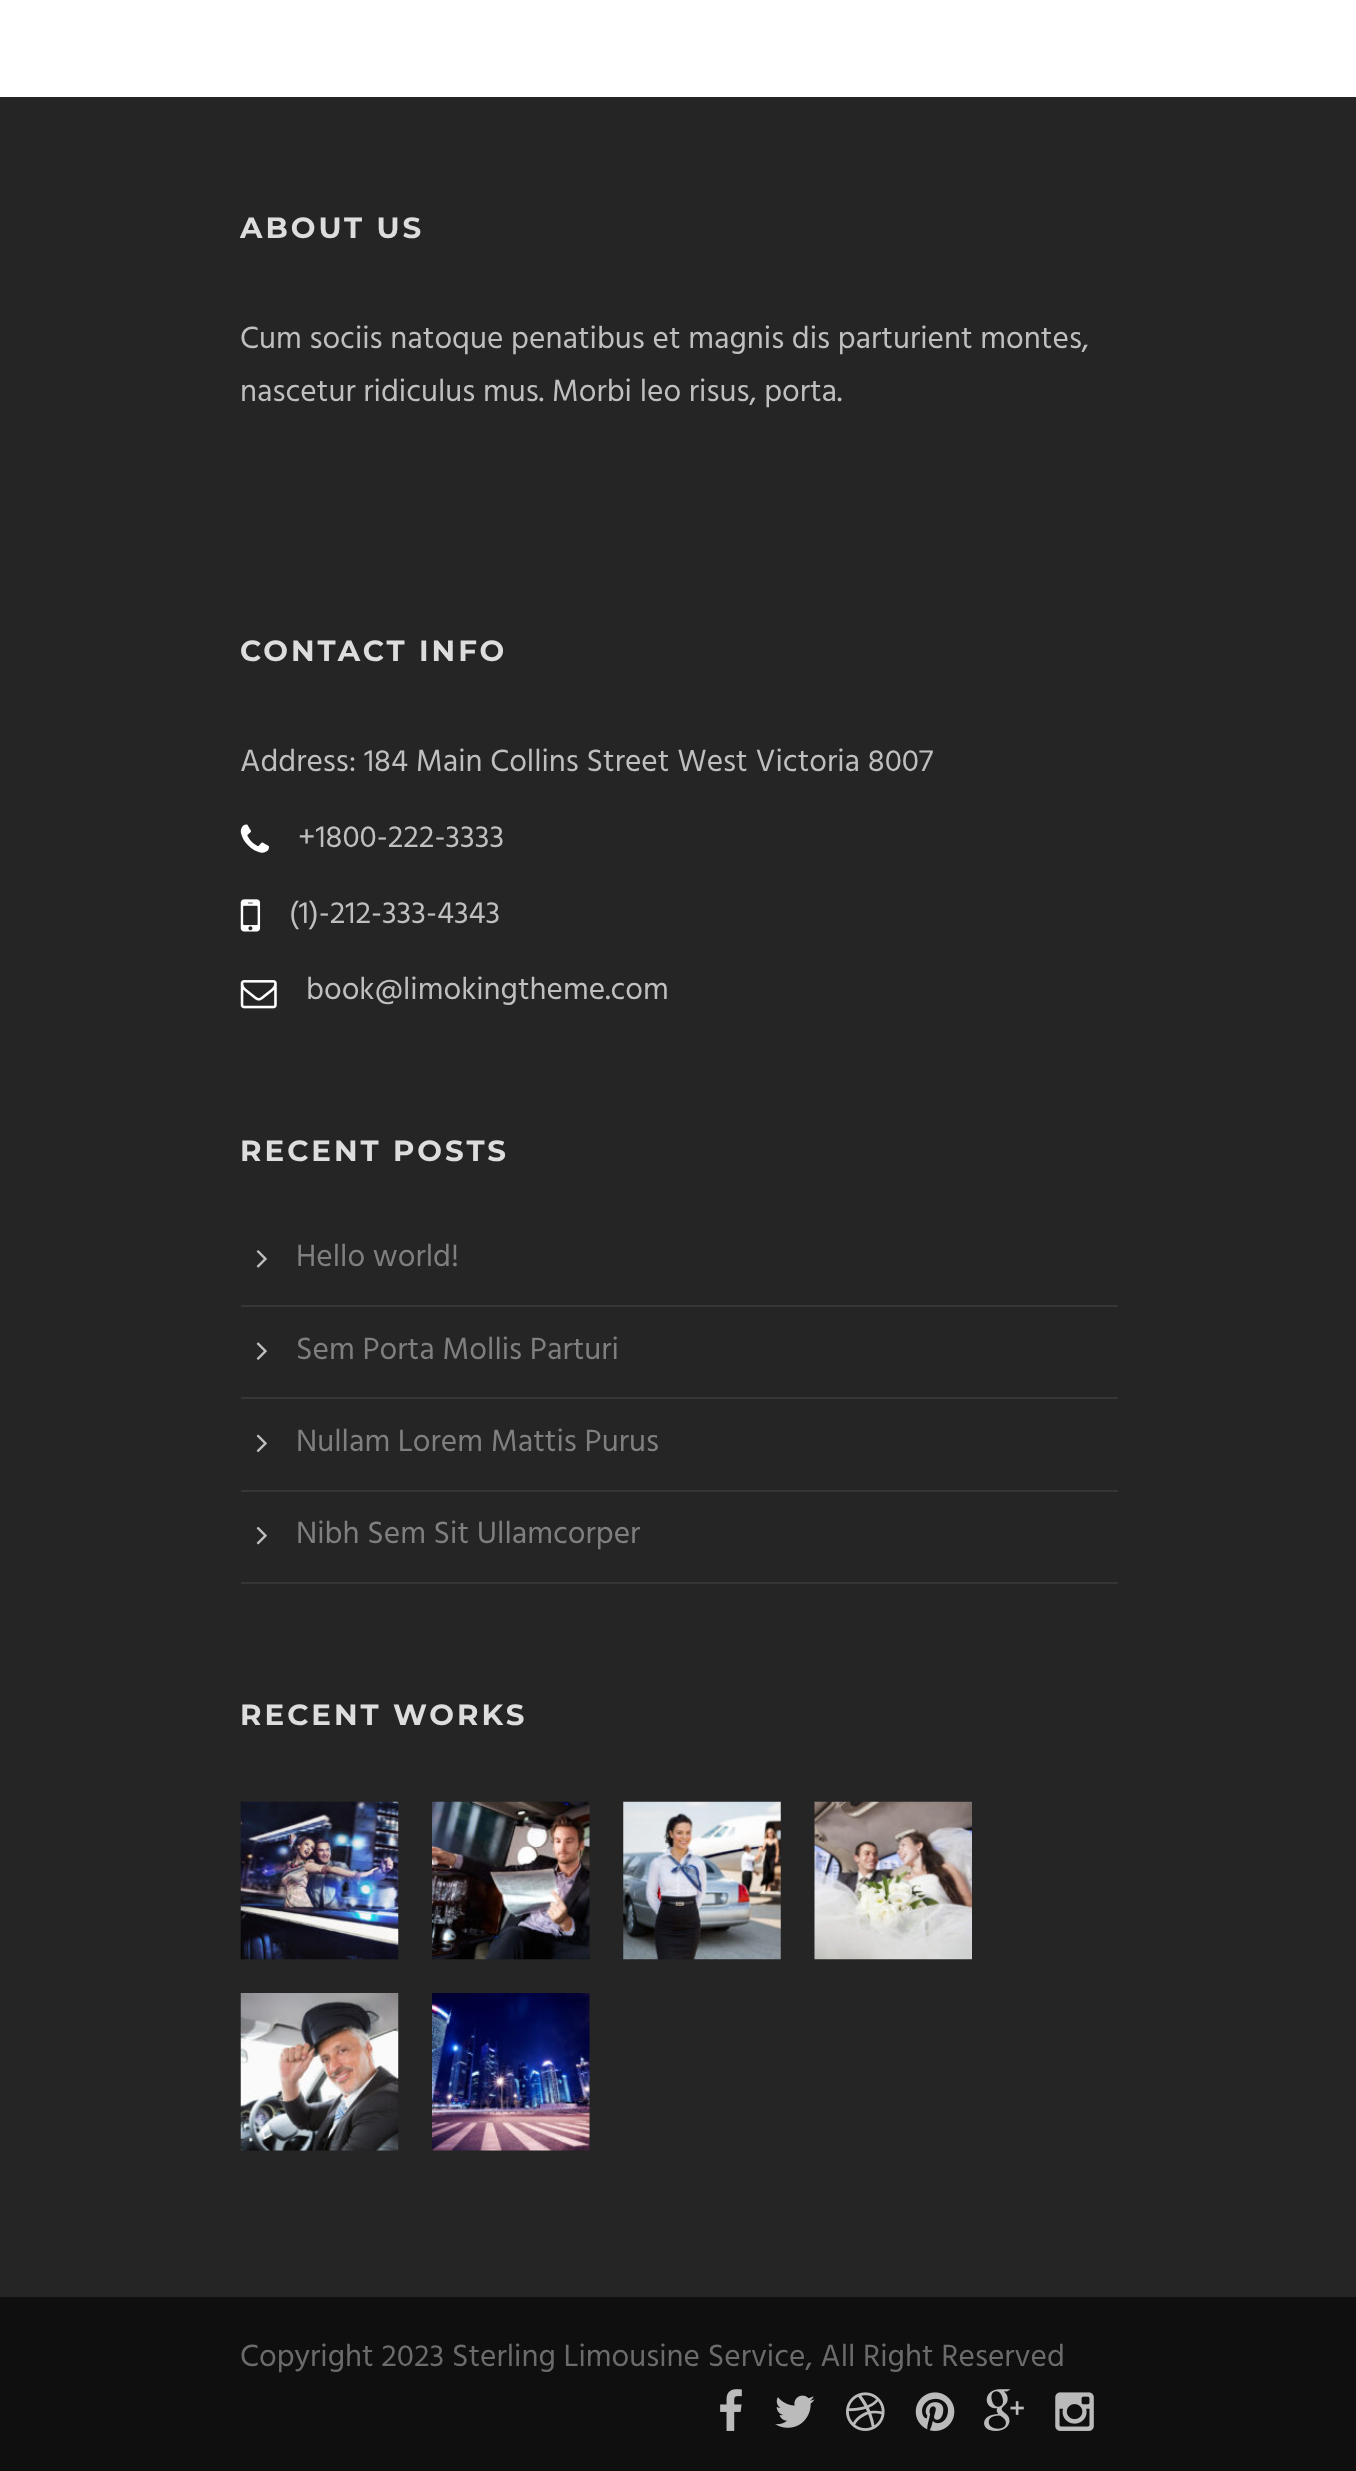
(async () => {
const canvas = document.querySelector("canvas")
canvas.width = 1356
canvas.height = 2471
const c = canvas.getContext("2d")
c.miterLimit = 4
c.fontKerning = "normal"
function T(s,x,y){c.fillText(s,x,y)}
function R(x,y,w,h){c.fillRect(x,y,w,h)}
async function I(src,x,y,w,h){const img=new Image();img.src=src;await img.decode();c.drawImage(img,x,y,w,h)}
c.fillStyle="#fff"
R(0,0,1356,2471)
c.fillStyle="#252525"
R(0,97,1356,2200)
c.letterSpacing="3px"
c.font="bold 29.25px Montserrat"
c.fillStyle="#ddd"
T("ABOUT US",240,238)
c.letterSpacing="0px"
c.font="31.5px Hind"
c.fillStyle="#bfbfbf"
T("Cum sociis natoque penatibus et magnis dis parturient montes,",240,348)
T("nascetur ridiculus mus. Morbi leo risus, porta.",240,401)
c.letterSpacing="3px"
c.font="bold 29.25px Montserrat"
c.fillStyle="#ddd"
T("CONTACT INFO",240,661)
c.letterSpacing="0px"
c.font="31.5px Hind"
c.fillStyle="#bfbfbf"
T("Address: 184 Main Collins Street West Victoria 8007",240,771)
await I("1.png",240,824,29,29)
T("+1800-222-3333",298,847)
await I("2.png",240,899,21,33)
T("(1)-212-333-4343",289,923)
await I("3.png",240,980,37,29)
T("book@limokingtheme.com",306,999)
c.letterSpacing="3px"
c.font="bold 29.25px Montserrat"
c.fillStyle="#ddd"
T("RECENT POSTS",240,1161)
c.fillStyle="#363636"
R(241,1305,877,2)
await I("4.png",256,1250,11,18)
c.letterSpacing="0px"
c.font="31.5px Hind"
c.fillStyle="#7f7f7f"
T("Hello world!",296,1266)
c.fillStyle="#363636"
R(241,1397,877,2)
await I("5.png",256,1342,11,18)
c.fillStyle="#7f7f7f"
T("Sem Porta Mollis Parturi",296,1359)
c.fillStyle="#363636"
R(241,1490,877,2)
await I("6.png",256,1434,11,19)
c.fillStyle="#7f7f7f"
T("Nullam Lorem Mattis Purus",296,1451)
c.fillStyle="#363636"
R(241,1582,877,2)
await I("7.png",256,1526,11,19)
c.fillStyle="#7f7f7f"
T("Nibh Sem Sit Ullamcorper",296,1543)
c.letterSpacing="3px"
c.font="bold 29.25px Montserrat"
c.fillStyle="#ddd"
T("RECENT WORKS",240,1725)
await I("8.png",240,1801,159,159)
await I("9.png",432,1801,158,159)
await I("10.png",623,1801,158,159)
await I("11.png",814,1801,158,159)
await I("12.png",240,1993,159,158)
await I("13.png",432,1993,158,158)
c.fillStyle="#0f0f0f"
R(0,2297,1356,174)
c.letterSpacing="0px"
c.font="31.5px Hind"
c.fillStyle="#6b6b6b"
T("Copyright 2023 Sterling Limousine Service, All Right Reserved",240,2366)
await I("14.png",720,2389,22,42)
await I("15.png",775,2395,40,33)
await I("16.png",846,2392,39,39)
await I("17.png",915,2392,40,39)
await I("18.png",984,2389,40,42)
await I("19.png",1055,2392,39,39)
})()
